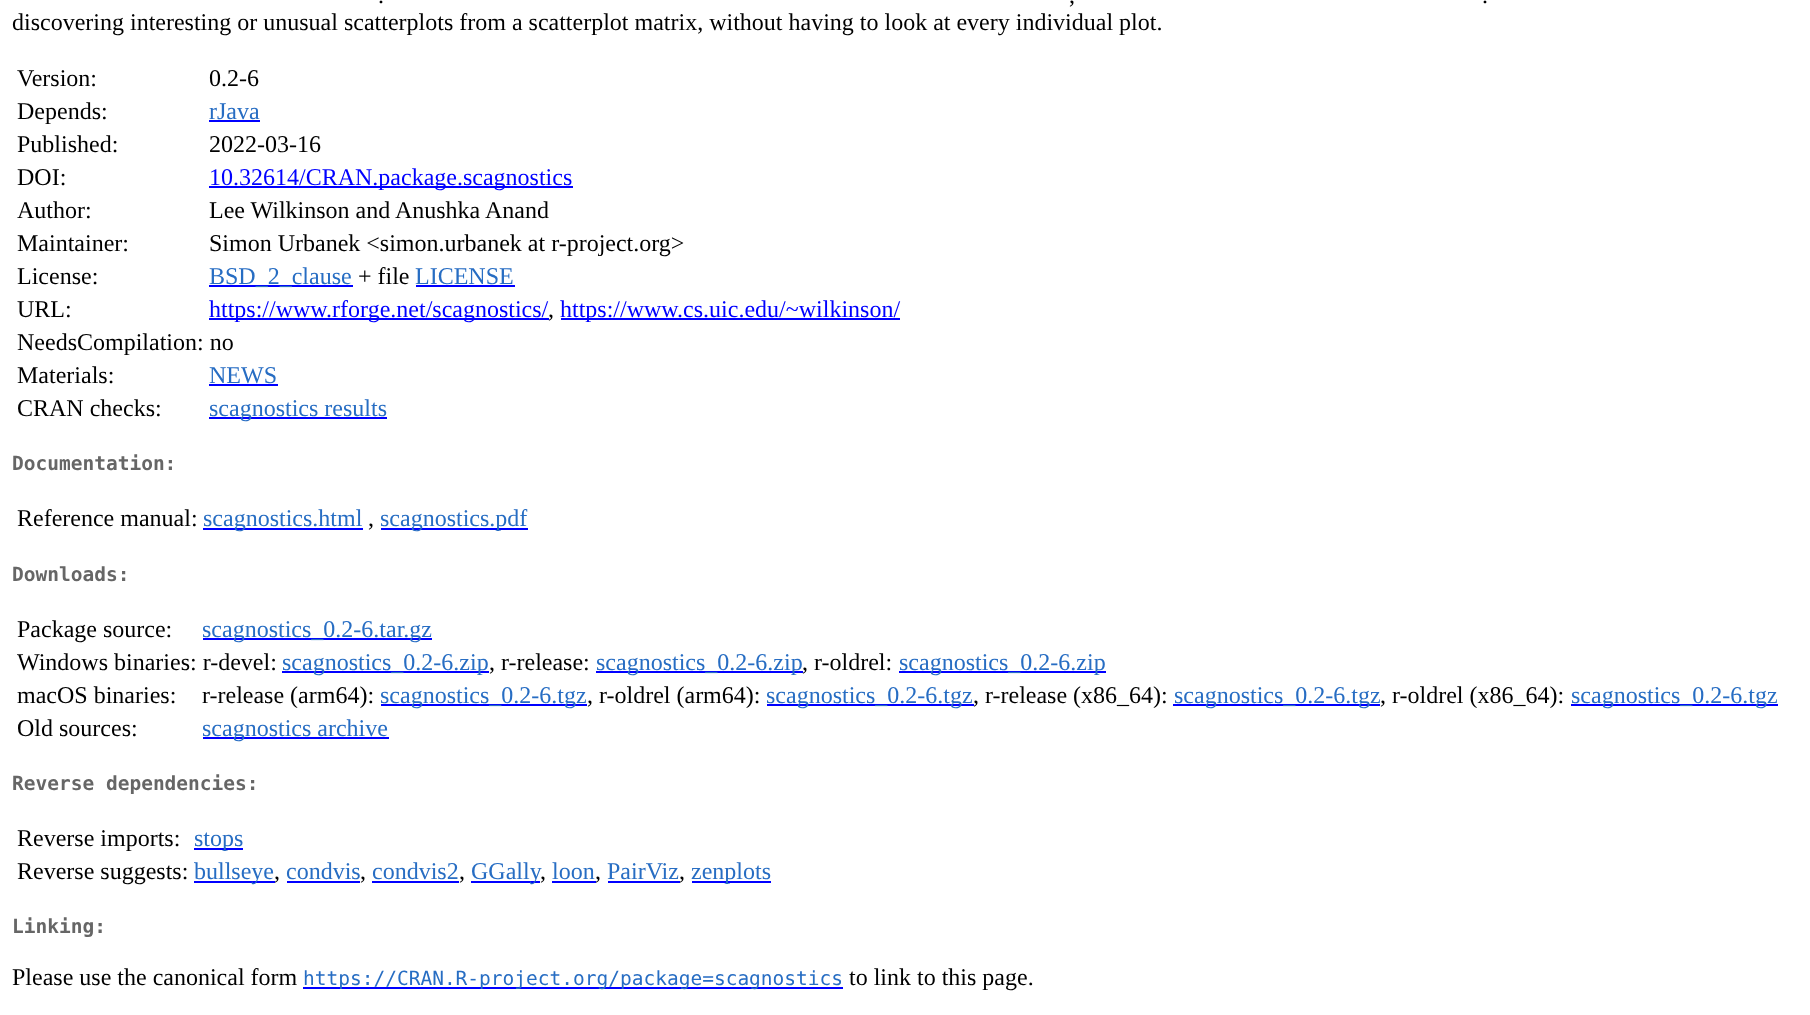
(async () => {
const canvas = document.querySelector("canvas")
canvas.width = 1810
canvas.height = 1015
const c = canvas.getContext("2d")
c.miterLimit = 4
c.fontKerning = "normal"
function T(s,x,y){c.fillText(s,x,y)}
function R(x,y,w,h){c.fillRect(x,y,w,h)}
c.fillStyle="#fff"
R(0,0,1810,1015)
c.font="24px Liberation Serif"
c.fillStyle="#000"
T(".",378,3)
T(",",1069,3)
T(".",1482,3)
T("discovering interesting or unusual scatterplots from a scatterplot matrix, without having to look at every individual plot.",12,30)
T("Version:",17,86)
T("0.2-6",209,86)
T("Depends:",17,119)
c.fillStyle="#276dc3"
T("rJava",209,119)
c.fillStyle="#00f"
R(209,120,51,2)
c.fillStyle="#000"
T("Published:",17,152)
T("2022-03-16",209,152)
T("DOI:",17,185)
c.fillStyle="#00f"
R(209,186,364,2)
T("10.32614/CRAN.package.scagnostics",209,185)
c.fillStyle="#000"
T("Author:",17,218)
T("Lee Wilkinson and Anushka Anand",209,218)
T("Maintainer:",17,251)
T("Simon Urbanek <simon.urbanek at r-project.org>",209,251)
T("License:",17,284)
c.fillStyle="#00f"
R(209,285,144,2)
c.fillStyle="#276dc3"
T("BSD_2_clause",209,284)
c.fillStyle="#000"
T("+ file",358,284)
c.fillStyle="#276dc3"
T("LICENSE",415,284)
c.fillStyle="#00f"
R(416,285,99,2)
c.fillStyle="#000"
T("URL:",17,317)
c.fillStyle="#00f"
R(209,318,340,2)
T("https://www.rforge.net/scagnostics/",209,317)
c.fillStyle="#000"
T(",",548,317)
c.fillStyle="#00f"
R(561,318,339,2)
T("https://www.cs.uic.edu/~wilkinson/",560,317)
c.fillStyle="#000"
T("NeedsCompilation: no",17,350)
T("Materials:",17,383)
c.fillStyle="#276dc3"
T("NEWS",209,383)
c.fillStyle="#00f"
R(209,384,69,2)
c.fillStyle="#000"
T("CRAN checks:",17,416)
c.fillStyle="#00f"
R(209,417,178,2)
c.fillStyle="#276dc3"
T("scagnostics results",209,416)
c.font="bold 19.5px DejaVu Sans Mono"
c.fillStyle="#666"
T("Documentation:",12,470)
c.font="24px Liberation Serif"
c.fillStyle="#000"
T("Reference manual:",17,526)
c.fillStyle="#00f"
R(203,528,160,2)
c.fillStyle="#276dc3"
T("scagnostics.html",203,526)
c.fillStyle="#000"
T(",",368,526)
c.fillStyle="#00f"
R(381,528,147,2)
c.fillStyle="#276dc3"
T("scagnostics.pdf",380,526)
c.font="bold 19.5px DejaVu Sans Mono"
c.fillStyle="#666"
T("Downloads:",12,581)
c.font="24px Liberation Serif"
c.fillStyle="#000"
T("Package source:",17,637)
c.fillStyle="#00f"
R(203,638,229,2)
c.fillStyle="#276dc3"
T("scagnostics_0.2-6.tar.gz",202,637)
c.fillStyle="#000"
T("Windows binaries: r-devel:",17,670)
c.fillStyle="#00f"
R(282,671,207,2)
c.fillStyle="#276dc3"
T("scagnostics_0.2-6.zip",282,670)
c.fillStyle="#000"
T(", r-release:",489,670)
c.fillStyle="#00f"
R(596,671,207,2)
c.fillStyle="#276dc3"
T("scagnostics_0.2-6.zip",596,670)
c.fillStyle="#000"
T(", r-oldrel:",802,670)
c.fillStyle="#00f"
R(899,671,207,2)
c.fillStyle="#276dc3"
T("scagnostics_0.2-6.zip",899,670)
c.fillStyle="#000"
T("macOS binaries:",17,703)
T("r-release (arm64):",202,703)
c.fillStyle="#00f"
R(381,704,206,2)
c.fillStyle="#276dc3"
T("scagnostics_0.2-6.tgz",380,703)
c.fillStyle="#000"
T(", r-oldrel (arm64):",587,703)
c.fillStyle="#00f"
R(767,704,207,2)
c.fillStyle="#276dc3"
T("scagnostics_0.2-6.tgz",766,703)
c.fillStyle="#000"
T(", r-release (x86_64):",973,703)
c.fillStyle="#00f"
R(1173,704,207,2)
c.fillStyle="#276dc3"
T("scagnostics_0.2-6.tgz",1174,703)
c.fillStyle="#000"
T(", r-oldrel (x86_64):",1380,703)
c.fillStyle="#00f"
R(1571,704,207,2)
c.fillStyle="#276dc3"
T("scagnostics_0.2-6.tgz",1571,703)
c.fillStyle="#000"
T("Old sources:",17,736)
c.fillStyle="#00f"
R(203,737,186,2)
c.fillStyle="#276dc3"
T("scagnostics archive",202,736)
c.font="bold 19.5px DejaVu Sans Mono"
c.fillStyle="#666"
T("Reverse dependencies:",12,790)
c.font="24px Liberation Serif"
c.fillStyle="#000"
T("Reverse imports:",17,846)
c.fillStyle="#00f"
R(194,848,49,2)
c.fillStyle="#276dc3"
T("stops",194,846)
c.fillStyle="#000"
T("Reverse suggests:",17,879)
c.fillStyle="#00f"
R(194,881,81,2)
c.fillStyle="#276dc3"
T("bullseye",194,879)
c.fillStyle="#000"
T(",",274,879)
c.fillStyle="#276dc3"
T("condvis",286,879)
c.fillStyle="#00f"
R(287,881,73,2)
c.fillStyle="#000"
T(",",360,879)
c.fillStyle="#276dc3"
T("condvis2",372,879)
c.fillStyle="#00f"
R(372,881,87,2)
c.fillStyle="#000"
T(",",459,879)
c.fillStyle="#00f"
R(471,881,69,2)
c.fillStyle="#276dc3"
T("GGally",471,879)
c.fillStyle="#000"
T(",",540,879)
c.fillStyle="#276dc3"
T("loon",552,879)
c.fillStyle="#00f"
R(552,881,44,2)
c.fillStyle="#000"
T(",",595,879)
c.fillStyle="#276dc3"
T("PairViz",607,879)
c.fillStyle="#00f"
R(608,881,72,2)
c.fillStyle="#000"
T(",",679,879)
c.fillStyle="#00f"
R(692,881,79,2)
c.fillStyle="#276dc3"
T("zenplots",691,879)
c.font="bold 19.5px DejaVu Sans Mono"
c.fillStyle="#666"
T("Linking:",12,933)
c.font="24px Liberation Serif"
c.fillStyle="#000"
T("Please use the canonical form",12,985)
c.fillStyle="#00f"
R(303,987,540,2)
c.font="19.5px DejaVu Sans Mono"
c.fillStyle="#276dc3"
T("https://CRAN.R-project.org/package=scagnostics",303,985)
c.font="24px Liberation Serif"
c.fillStyle="#000"
T("to link to this page.",849,985)
})()
